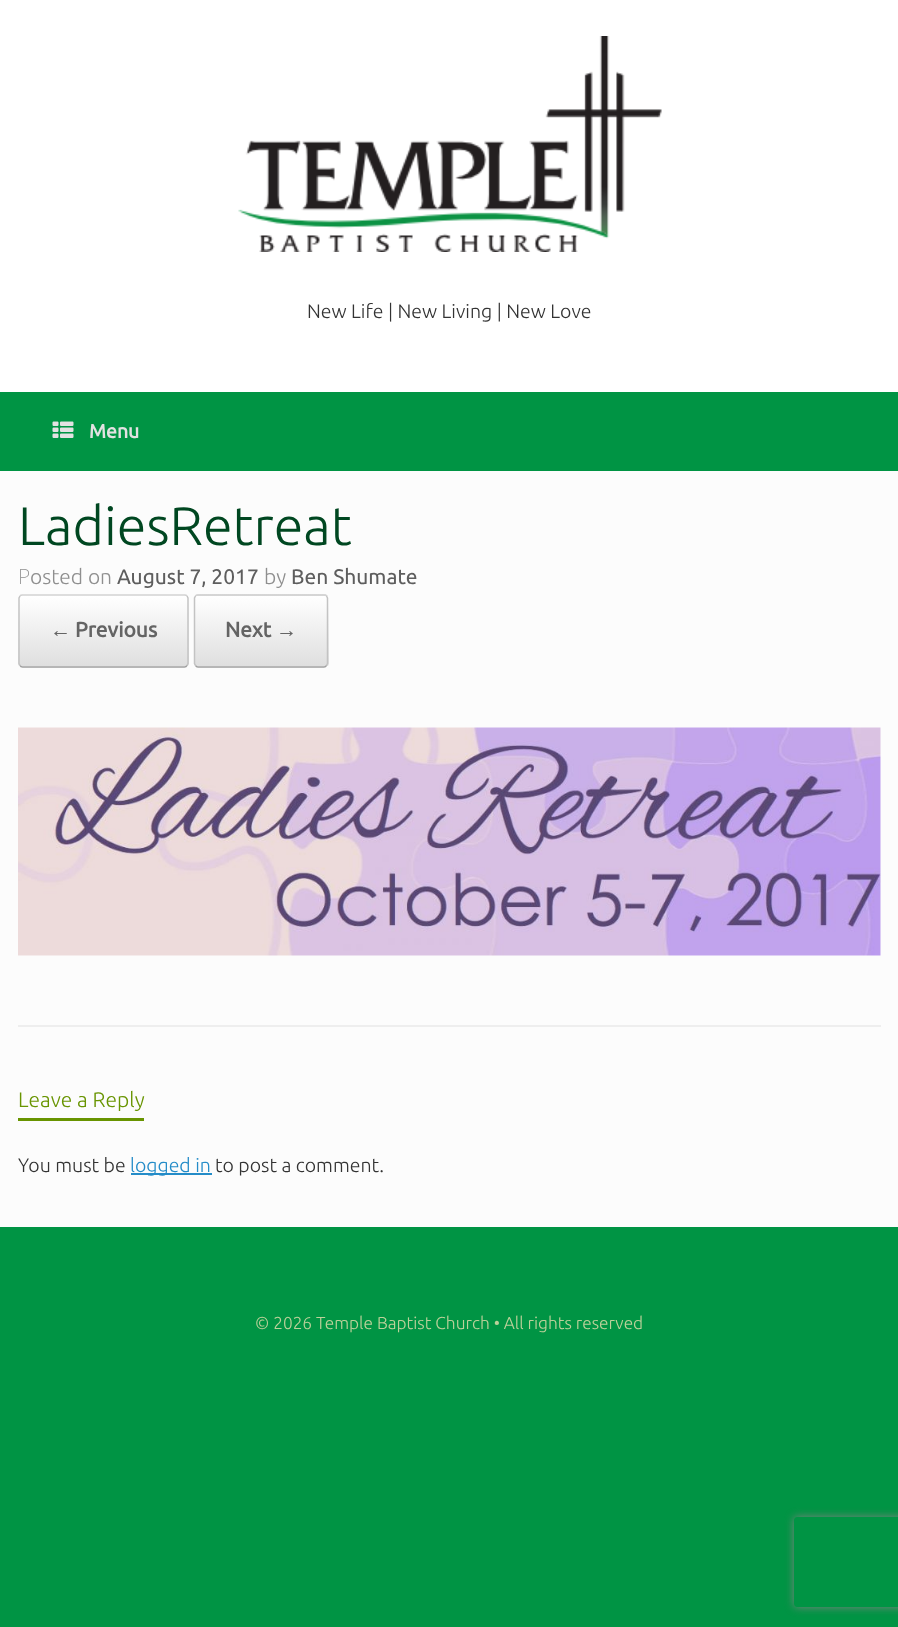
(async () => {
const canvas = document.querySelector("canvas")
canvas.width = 898
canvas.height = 1627
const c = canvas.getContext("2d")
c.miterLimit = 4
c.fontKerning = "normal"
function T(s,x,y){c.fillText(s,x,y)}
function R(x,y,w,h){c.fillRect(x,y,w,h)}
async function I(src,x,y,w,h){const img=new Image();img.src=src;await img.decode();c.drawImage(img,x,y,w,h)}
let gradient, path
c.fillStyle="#009444"
R(0,0,898,1627)
c.fillStyle="#fff"
R(0,0,898,392)
await I("1.png",238,36,424,216)
c.font="300 19.5px Ubuntu"
c.fillStyle="#333"
T("New Life | New Living | New Love",307,318)
await I("2.png",52,421,22,17)
c.font="bold 19.5px Ubuntu"
c.fillStyle="#e2e2e2"
T("Menu",89,438)
c.fillStyle="#fcfcfc"
R(0,471,898,756)
c.fillStyle="#eee"
R(18,1025,863,2)
c.font="300 54px Ubuntu"
c.fillStyle="#004721"
T("LadiesRetreat",18,545)
c.font="200 21px Noto Sans"
c.fillStyle="#8f8f8f"
T("P",18,584)
c.font="300 21px Ubuntu"
T("osted on",30,584)
c.font="21px Ubuntu"
c.fillStyle="#5e5e5e"
T("August 7, 2017",117,584)
c.font="300 21px Ubuntu"
c.fillStyle="#8f8f8f"
T("by",264,584)
c.font="21px Ubuntu"
c.fillStyle="#5e5e5e"
T("Ben Shumate",291,584)
c.save()
c.beginPath()
c.roundRect(18,594,171,74,5)
c.clip()
gradient = c.createLinearGradient(20,666,20,596)
gradient.addColorStop(0,"#dfdfdf")
gradient.addColorStop(1,"#fff")
c.fillStyle = gradient
R(18,596,171,70)
gradient = c.createLinearGradient(20,737,20,666)
gradient.addColorStop(0,"#dfdfdf")
gradient.addColorStop(1,"#fff")
c.fillStyle = gradient
R(18,666,171,2)
c.restore()
path = new Path2D("M20 596c.5-1 1.5-1 2.5-1h162c1 0 2 0 2.5 1")
c.strokeStyle="#d2d2d2"
c.lineWidth=1.5
c.stroke(path)
path = new Path2D("M187 596l1 2v65.5l-1 2")
c.strokeStyle="#c3c3c3"
c.stroke(path)
path = new Path2D("M187 665.5c-.5 1-1.5 1.5-2.5 1.5h-162c-1 0-2-.5-2.5-1.5")
c.strokeStyle="#9f9f9f"
c.stroke(path)
path = new Path2D("M20 665.5l-1-2v-65.5l1-2")
c.strokeStyle="#c3c3c3"
c.stroke(path)
c.font="bold 21px Liberation Serif"
c.fillStyle="#646464"
T("←",50,637)
c.font="bold 21px Ubuntu"
T("Previous",75,637)
c.save()
c.beginPath()
c.roundRect(194,594,135,74,5)
c.clip()
gradient = c.createLinearGradient(195,596,195,525)
gradient.addColorStop(0,"#dfdfdf")
gradient.addColorStop(1,"#fff")
c.fillStyle = gradient
R(194,594,135,2)
gradient = c.createLinearGradient(195,666,195,596)
gradient.addColorStop(0,"#dfdfdf")
gradient.addColorStop(1,"#fff")
c.fillStyle = gradient
R(194,596,135,70)
gradient = c.createLinearGradient(195,737,195,666)
gradient.addColorStop(0,"#dfdfdf")
gradient.addColorStop(1,"#fff")
c.fillStyle = gradient
R(194,666,135,2)
c.restore()
path = new Path2D("M195.5 596c.5-1 1.5-1 2.5-1h126c1 0 2 0 2.5 1")
c.strokeStyle="#d2d2d2"
c.stroke(path)
path = new Path2D("M326.5 596l1 2v65.5l-1 2")
c.strokeStyle="#c3c3c3"
c.stroke(path)
path = new Path2D("M326.5 665.5c-.5 1-1.5 1.5-2.5 1.5h-126c-1 0-2-.5-2.5-1.5")
c.strokeStyle="#9f9f9f"
c.stroke(path)
path = new Path2D("M195.5 665.5l-1-2v-65.5l1-2")
c.strokeStyle="#c3c3c3"
c.stroke(path)
T("Next",225,637)
c.font="bold 21px Liberation Serif"
T("→",276,637)
await I("3.png",18,727,863,229)
c.fillStyle="#689400"
R(18,1118,126,3)
c.font="300 21px Ubuntu"
T("Leave a Reply",18,1107)
c.font="300 19.5px Ubuntu"
c.fillStyle="#333"
T("You must be",18,1172)
c.fillStyle="#248cc8"
R(131,1173,81,2)
T("logged in",130,1172)
c.fillStyle="#333"
T("to post a comment.",215,1172)
c.font="300 17.25px Ubuntu"
c.fillStyle="#bcd19a"
T("© 2026 Temple Baptist Church • All rights reserved",255,1329)
c.save()
path = new Path2D("M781 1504h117v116h-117zm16 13h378c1.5 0 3 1.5 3 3v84c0 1.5-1.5 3-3 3h-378c-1.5 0-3-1.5-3-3v-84c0-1.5 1.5-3 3-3z")
c.clip(path,"evenodd")
c.fillStyle="#808080"
c.filter="blur(4px)"
c.beginPath()
c.roundRect(794,1517,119,90,3)
c.fill()
c.filter="none"
c.restore()
})()
